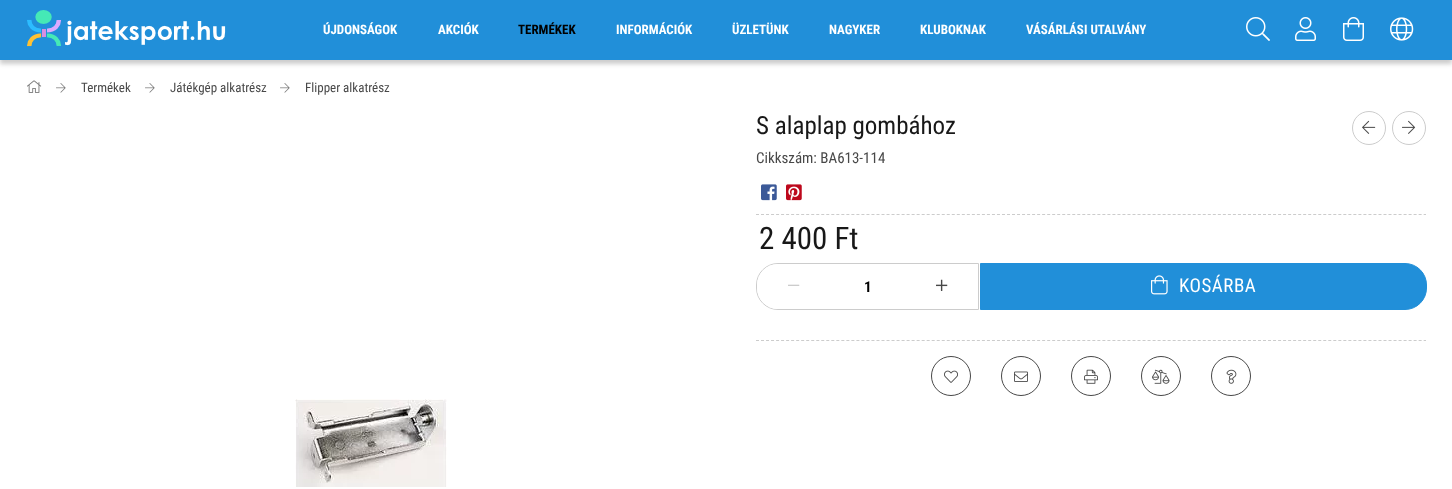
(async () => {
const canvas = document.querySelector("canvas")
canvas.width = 1452
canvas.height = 489
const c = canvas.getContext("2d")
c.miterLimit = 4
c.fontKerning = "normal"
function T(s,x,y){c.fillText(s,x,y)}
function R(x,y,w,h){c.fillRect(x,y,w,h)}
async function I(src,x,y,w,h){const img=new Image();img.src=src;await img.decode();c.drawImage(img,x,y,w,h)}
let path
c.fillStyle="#fff"
R(0,0,1452,489)
c.fillStyle="#00000033"
c.filter="blur(2px)"
c.beginPath()
c.rect(0,4,1452,60)
c.fill()
c.filter="none"
c.fillStyle="#218fd9"
R(0,0,1452,60)
await I("1.png",27,10,199,37)
c.font="bold 13px Roboto Condensed"
c.fillStyle="#fff"
T("ÚJDONSÁGOK",323,34)
T("AKCIÓK",438,34)
c.fillStyle="#000"
T("TERMÉKEK",518,34)
c.fillStyle="#fff"
T("INFORMÁCIÓK",616,34)
T("ÜZLETÜNK",732,34)
T("NAGYKER",829,34)
T("KLUBOKNAK",920,34)
T("VÁSÁRLÁSI UTALVÁNY",1026,34)
await I("2.png",1246,17,24,24)
await I("3.png",1295,17,21,24)
await I("4.png",1343,17,21,24)
await I("5.png",1390,17,24,24)
await I("6.png",27,80,15,13)
await I("7.png",56,83,10,10)
c.font="13px Roboto Condensed"
c.fillStyle="#484848"
T("Termékek",81,92)
await I("7.png",145,83,10,10)
T("Játékgép alkatrész",170,92)
await I("7.png",280,83,10,10)
T("Flipper alkatrész",305,92)
path = new Path2D("M756 214.5h670")
c.strokeStyle="#ccc"
c.setLineDash([3,2.02])
c.stroke(path)
c.font="25px Roboto Condensed"
c.fillStyle="#181818"
T("S alaplap gombához",756,134)
c.beginPath()
c.arc(1369,128,16.5,0,7)
c.setLineDash([])
c.stroke()
await I("8.png",1362,120,14,14)
c.beginPath()
c.arc(1409,128,16.5,0,7)
c.stroke()
await I("9.png",1402,120,14,14)
c.font="15px Roboto Condensed"
c.fillStyle="#484848"
T("Cikkszám: BA613-114",756,163)
await I("10.png",761,184,16,17)
await I("11.png",786,184,16,17)
c.font="31px Roboto Condensed"
c.fillStyle="#181818"
T("2 400 Ft",759,249)
c.beginPath()
c.roundRect(756.5,263.5,222,46,[21.5,0,0,21.5])
c.stroke()
c.fillStyle="#fff"
c.beginPath()
c.roundRect(757,264,74,45,[21,0,0,21])
c.fill()
await I("12.png",788,284,12,2)
c.font="bold 15px Roboto Condensed"
c.fillStyle="#000"
T("1",864,292)
await I("13.png",936,279,12,12)
c.fillStyle="#218fd9"
c.beginPath()
c.roundRect(980.5,263.5,446,46,[0,21.5,21.5,0])
c.fill()
c.strokeStyle="#218fd9"
c.stroke()
await I("14.png",1151,275,17,20)
c.letterSpacing="0.5px"
c.font="19px Roboto Condensed"
c.fillStyle="#fff"
T("KOSÁRBA",1179,292)
path = new Path2D("M756 340.5h670")
c.strokeStyle="#ccc"
c.setLineDash([3,2.02])
c.stroke(path)
c.beginPath()
c.arc(951,376,19.5,0,7)
c.strokeStyle="#484848"
c.setLineDash([])
c.stroke()
await I("15.png",944,370,14,13)
c.beginPath()
c.arc(1021,376,19.5,0,7)
c.stroke()
await I("16.png",1014,371,14,11)
c.beginPath()
c.arc(1091,376,19.5,0,7)
c.stroke()
await I("17.png",1084,369,14,15)
c.beginPath()
c.arc(1161,376,19.5,0,7)
c.stroke()
await I("18.png",1152,369,18,15)
c.beginPath()
c.arc(1231,376,19.5,0,7)
c.stroke()
await I("19.png",1226,369,11,15)
await I("20.png",295,399,152,88)
})()
